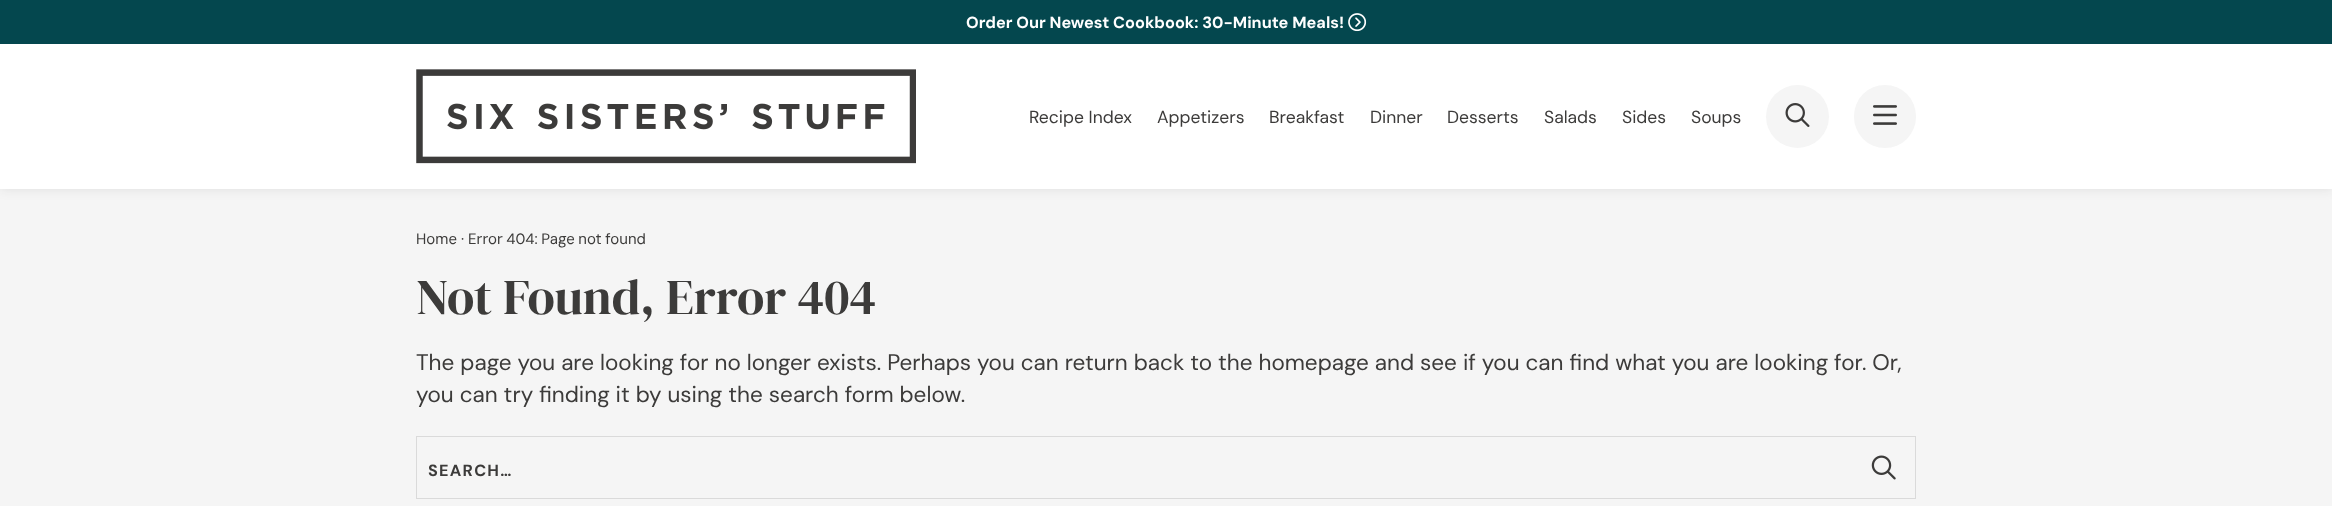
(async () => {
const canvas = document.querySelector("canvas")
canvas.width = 2332
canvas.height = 506
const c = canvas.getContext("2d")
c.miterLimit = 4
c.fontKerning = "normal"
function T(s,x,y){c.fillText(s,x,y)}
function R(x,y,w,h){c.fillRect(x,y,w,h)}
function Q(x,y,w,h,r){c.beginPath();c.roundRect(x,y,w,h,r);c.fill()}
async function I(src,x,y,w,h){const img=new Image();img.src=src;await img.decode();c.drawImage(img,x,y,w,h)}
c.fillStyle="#f5f5f5"
R(0,0,2332,506)
c.fillStyle="#2121211a"
c.filter="blur(6px)"
c.beginPath()
c.rect(0,0,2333,189)
c.fill()
c.filter="none"
c.fillStyle="#fff"
R(0,44,2332,145)
c.fillStyle="#04474e"
R(0,0,2332,44)
c.font="bold 16.25px DM Sans"
c.fillStyle="#fff"
T("Order Our Newest Cookbook: 30-Minute Meals!",966,28)
await I("1.png",1348,13,19,19)
await I("2.png",416,69,500,95)
c.font="17.5px 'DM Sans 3'"
c.fillStyle="#3c3b3a"
T("Recipe Index",1029,123)
T("Appetizers",1157,123)
T("Breakfast",1269,123)
T("Dinner",1370,123)
T("Desserts",1447,123)
T("Salads",1544,123)
T("Sides",1622,123)
T("Soups",1691,123)
c.fillStyle="#f5f5f5"
c.beginPath()
c.arc(1797.5,116.5,31.5,0,7)
c.fill()
await I("3.png",1785,103,25,24)
Q(1854,85,62,63,31)
await I("4.png",1873,105,24,20)
c.font="15px 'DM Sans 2'"
c.fillStyle="#3c3b3a"
T("Home ·",416,244)
c.wordSpacing="-0.5px"
T("Error 404: Page not found",468,244)
c.wordSpacing="0px"
c.font="50px DM Serif Display"
T("Not Found, Error 404",416,314)
c.font="22.5px DM Sans"
T("The page you are looking for no longer exists. Perhaps you can return back to the homepage and see if you can find what you are looking for. Or,",416,370)
T("you can try finding it by using the search form below.",416,402)
c.strokeStyle="#dadada"
c.strokeRect(416.5,436.5,1499,62)
c.letterSpacing="1.25px"
c.font="bold 16.25px DM Sans"
T("SEARCH…",428,476)
await I("5.png",1871,455,25,25)
})()
